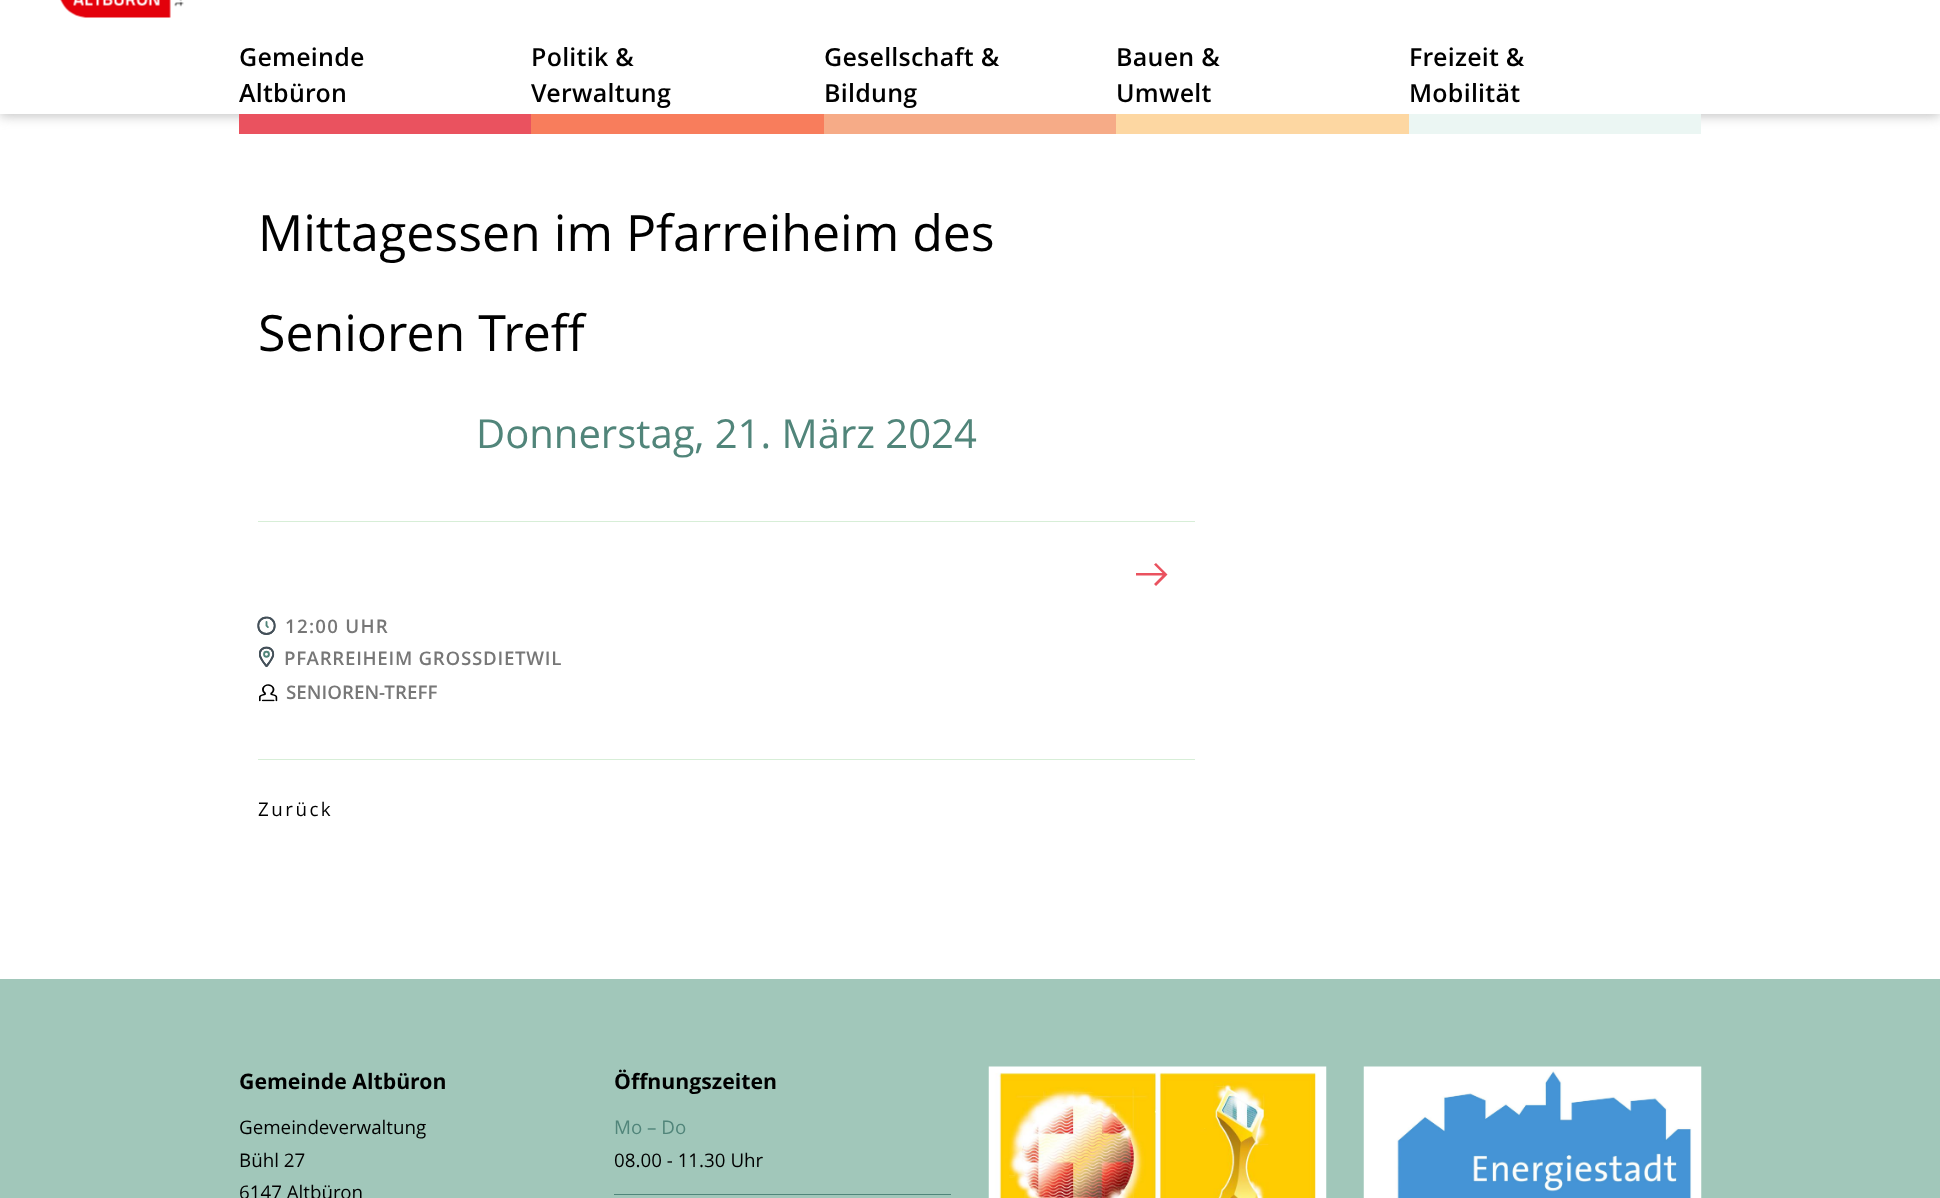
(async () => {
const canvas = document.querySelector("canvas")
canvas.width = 1940
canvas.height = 1198
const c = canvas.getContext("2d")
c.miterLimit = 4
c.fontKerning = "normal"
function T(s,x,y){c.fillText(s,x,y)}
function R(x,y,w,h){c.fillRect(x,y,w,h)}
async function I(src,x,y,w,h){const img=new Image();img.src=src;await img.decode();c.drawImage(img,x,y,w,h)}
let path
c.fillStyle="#fff"
R(0,0,1940,1198)
c.fillStyle="#c2c2c2"
c.filter="blur(6px)"
c.beginPath()
c.rect(0,-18,1940,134)
c.fill()
c.filter="none"
c.fillStyle="#fff"
R(0,0,1940,114)
await I("1.png",60,0,124,18)
c.fillStyle="#ea525f"
R(239,114,292,20)
c.letterSpacing="0.25px"
c.font="600 25px Open Sans"
c.fillStyle="#000"
T("Gemeinde",239,66)
T("Altbüron",239,102)
c.fillStyle="#f87d5c"
R(531,114,293,20)
c.fillStyle="#000"
T("Politik &",531,66)
T("Verwaltung",531,102)
c.fillStyle="#f6ab87"
R(824,114,292,20)
c.fillStyle="#000"
T("Gesellschaft &",824,66)
T("Bildung",824,102)
c.fillStyle="#fdd7a2"
R(1116,114,293,20)
c.fillStyle="#000"
T("Bauen &",1116,66)
T("Umwelt",1116,102)
c.fillStyle="#ebf6f3"
R(1409,114,292,20)
c.fillStyle="#000"
T("Freizeit &",1409,66)
T("Mobilität",1409,102)
c.letterSpacing="0px"
c.font="50px Open Sans"
T("Mittagessen im Pfarreiheim des",258,251)
T("Senioren Treff",258,351)
c.font="40px Open Sans"
c.fillStyle="#51857a"
T("Donnerstag, 21. März 2024",476,448)
c.fillStyle="#d7eed7"
R(258,521,937,1)
R(258,759,937,1)
c.fillStyle="#ea525f"
path = new Path2D("M1156 563l-2 1.5l8.5 8.5h-26.5v2.5h26.5l-8.5 8.5l2 2l11.5-11.5z")
c.fill(path)
await I("2.png",257,616,19,19)
c.letterSpacing="1.25px"
c.font="600 18.75px Open Sans"
c.fillStyle="#777"
T("12:00 UHR",285,633)
await I("3.png",259,646,16,22)
c.letterSpacing="0.7px"
T("PFARREIHEIM GROSSDIETWIL",284,665)
await I("4.png",259,684,19,18)
c.letterSpacing="0px"
T("SENIOREN-TREFF",286,699)
c.letterSpacing="2.5px"
c.font="18.75px 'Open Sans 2'"
c.fillStyle="#000"
T("Zurück",258,816)
c.fillStyle="#a1c7ba"
R(0,979,1940,219)
c.letterSpacing="0px"
c.font="bold 21.25px Open Sans"
c.fillStyle="#000"
T("Gemeinde Altbüron",239,1089)
c.font="18.75px Open Sans"
T("Gemeindeverwaltung",239,1134)
T("Bühl 27",239,1167)
T("6147 Altbüron",239,1199)
c.font="bold 21.25px Open Sans"
T("Öffnungszeiten",614,1089)
c.fillStyle="#51857a"
R(614,1194,337,1)
c.font="18.75px Open Sans"
T("Mo – Do",614,1134)
c.fillStyle="#000"
T("08.00 - 11.30 Uhr",614,1167)
await I("5.png",988,1066,339,132)
await I("6.png",1363,1066,339,132)
})()
